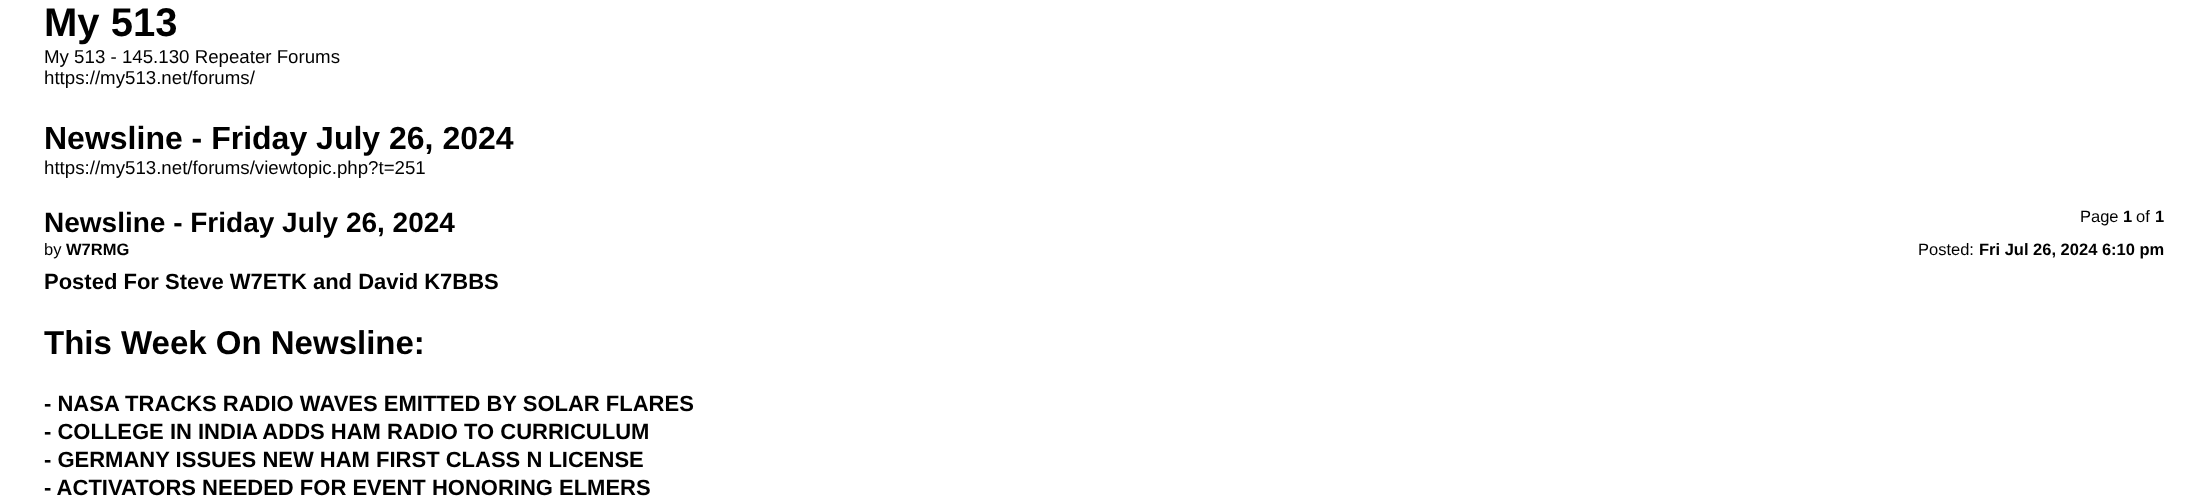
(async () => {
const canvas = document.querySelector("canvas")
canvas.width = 2207
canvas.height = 500
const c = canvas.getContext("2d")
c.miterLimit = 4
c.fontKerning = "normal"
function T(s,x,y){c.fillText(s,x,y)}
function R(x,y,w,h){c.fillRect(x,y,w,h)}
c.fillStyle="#fff"
R(0,0,2207,500)
c.font="bold 40px Liberation Sans"
c.fillStyle="#000"
T("My 513",44,36)
c.font="18.7px Liberation Sans"
T("My 513 - 145.130 Repeater Forums",44,63)
T("https://my513.net/forums/",44,84)
c.font="bold 32px Liberation Sans"
T("Newsline - Friday July 26, 2024",44,149)
c.font="18.7px Liberation Sans"
T("https://my513.net/forums/viewtopic.php?t=251",44,174)
c.font="16.5px Liberation Sans"
T("Page",2080,222)
c.font="bold 16.5px Liberation Sans"
T("1",2123,222)
c.font="16.5px Liberation Sans"
T("of",2136,222)
c.font="bold 16.5px Liberation Sans"
T("1",2155,222)
c.font="bold 28px Liberation Sans"
T("Newsline - Friday July 26, 2024",44,232)
c.font="16.5px Liberation Sans"
T("by",44,255)
c.font="bold 16.5px Liberation Sans"
T("W7RMG",66,255)
c.font="16.5px Liberation Sans"
T("Posted:",1918,255)
c.font="bold 16.5px Liberation Sans"
T("Fri Jul 26, 2024 6:10 pm",1979,255)
c.font="bold 22px Liberation Sans"
T("Posted For Steve W7ETK and David K7BBS",44,289)
c.font="bold 33px Liberation Sans"
T("This Week On Newsline:",44,354)
c.font="bold 22px Liberation Sans"
T("- NASA TRACKS RADIO WAVES EMITTED BY SOLAR FLARES",44,411)
T("- COLLEGE IN INDIA ADDS HAM RADIO TO CURRICULUM",44,439)
T("- GERMANY ISSUES NEW HAM FIRST CLASS N LICENSE",44,467)
T("- ACTIVATORS NEEDED FOR EVENT HONORING ELMERS",44,495)
})()
